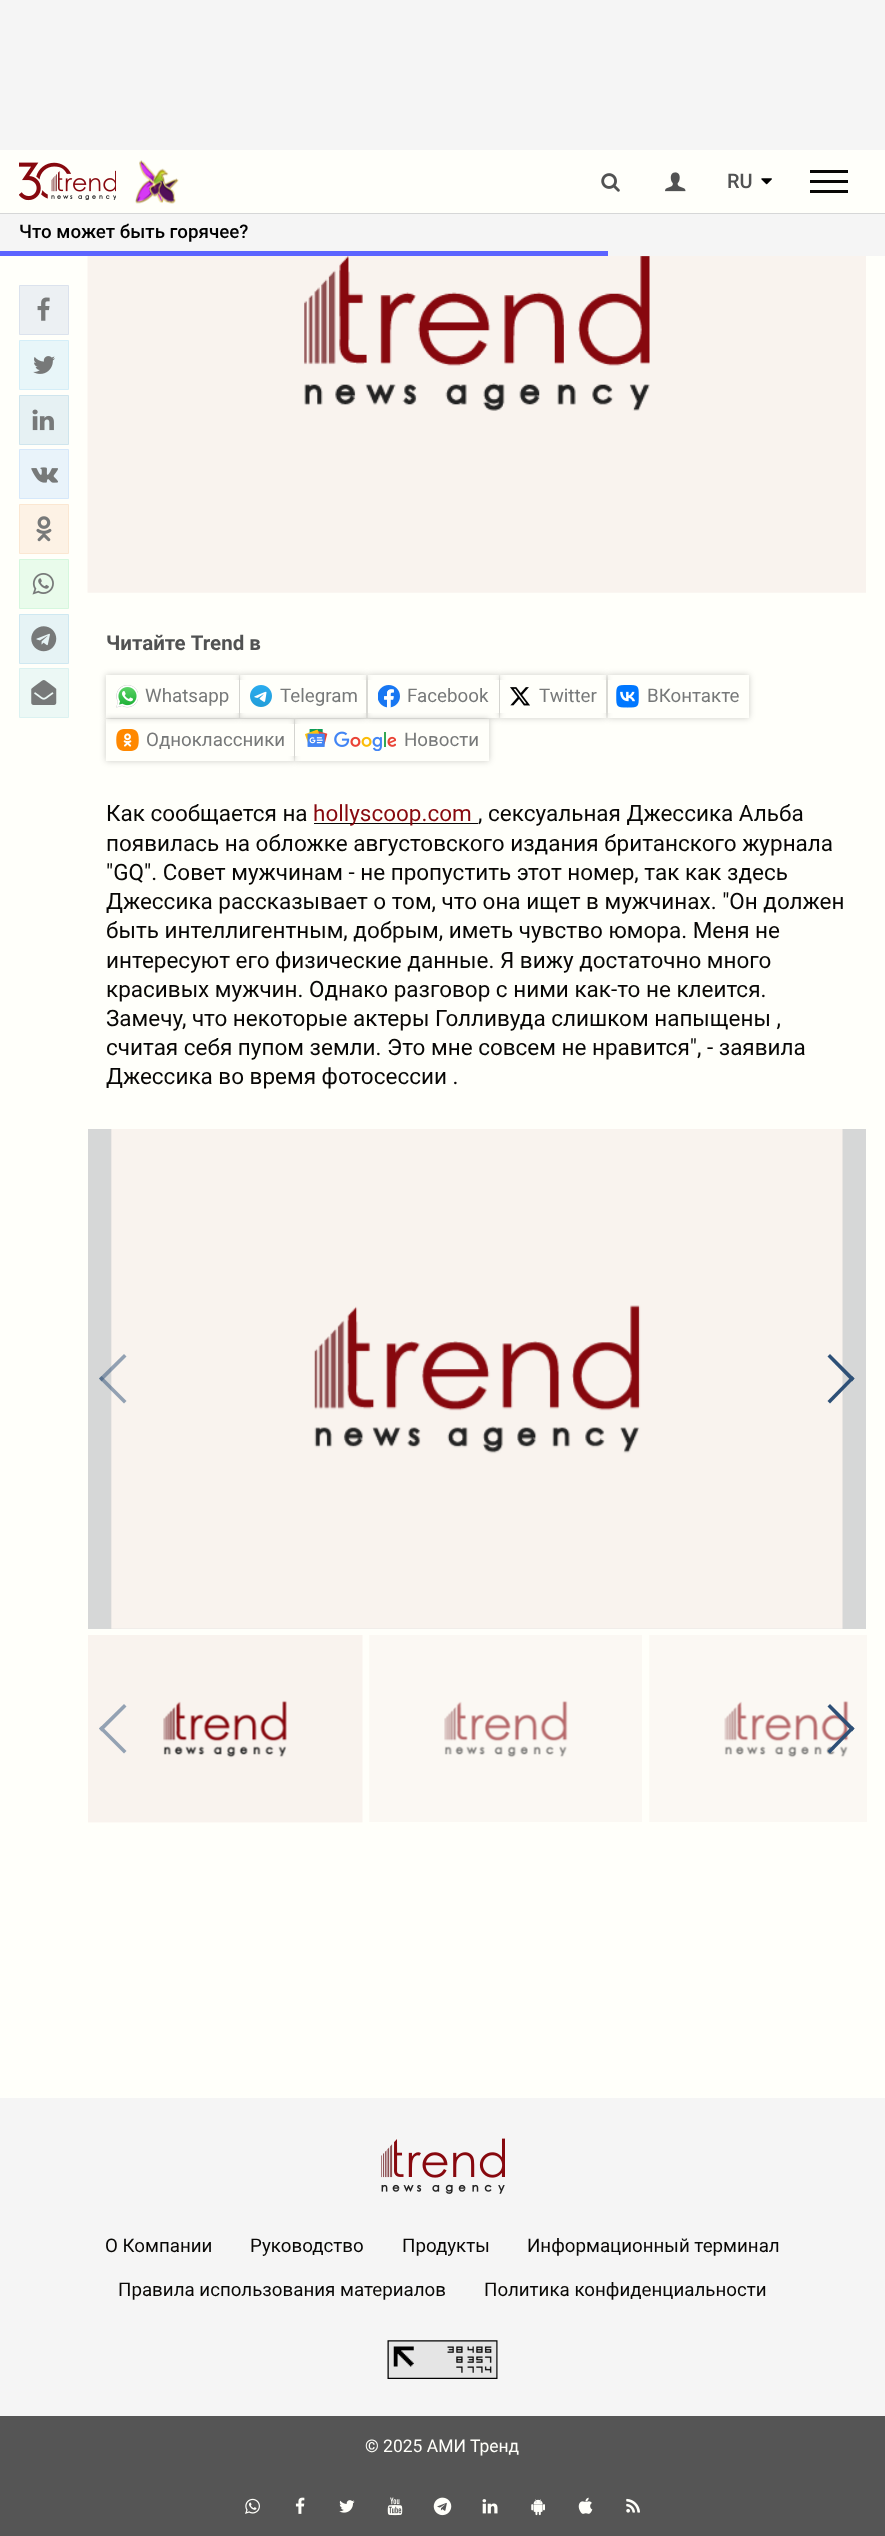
(async () => {
const canvas = document.querySelector("canvas")
canvas.width = 885
canvas.height = 2536
const c = canvas.getContext("2d")
c.miterLimit = 4
c.fontKerning = "normal"
function T(s,x,y){c.fillText(s,x,y)}
function R(x,y,w,h){c.fillRect(x,y,w,h)}
async function I(src,x,y,w,h){const img=new Image();img.src=src;await img.decode();c.drawImage(img,x,y,w,h)}
let path
c.fillStyle="#fffffa"
R(0,0,885,2536)
c.fillStyle="#f5f5f5"
R(0,0,885,150)
await I("1.png",19,162,97,39)
await I("2.png",135,160,44,44)
await I("3.png",601,173,19,19)
await I("4.png",665,172,21,20)
c.font="500 20px Roboto"
c.fillStyle="#515252"
T("RU",727,188)
await I("5.png",761,178,11,7)
c.fillStyle="#080705"
R(810,170,38,3)
R(810,180,38,3)
R(810,190,38,3)
c.fillStyle="#f5f5f5"
R(0,214,885,42)
c.fillStyle="#d6d7d7"
R(0,213,885,1)
c.font="500 18.75px Roboto"
c.fillStyle="#000"
T("Что может быть горячее?",19,238)
c.fillStyle="#5c64ff"
R(0,251,608,5)
c.fillStyle="#ecf0f3"
c.beginPath()
c.rect(19.5,285.5,49,49)
c.fill()
c.strokeStyle="#dbe2ed"
c.stroke()
await I("6.png",37,297,13,24)
c.fillStyle="#e8f6f9"
c.beginPath()
c.rect(19.5,340.5,49,49)
c.fill()
c.strokeStyle="#d4eef8"
c.stroke()
await I("7.png",33,356,22,18)
c.fillStyle="#e6f1f3"
c.beginPath()
c.rect(19.5,395.5,49,49)
c.fill()
c.strokeStyle="#cfe5ed"
c.stroke()
await I("8.png",32,409,22,22)
c.fillStyle="#e9f3fa"
c.beginPath()
c.rect(19.5,449.5,49,49)
c.fill()
c.strokeStyle="#d6e8fa"
c.stroke()
await I("9.png",31,467,27,16)
c.fillStyle="#fdf2e5"
c.beginPath()
c.rect(19.5,504.5,49,49)
c.fill()
c.strokeStyle="#fbe7d2"
c.stroke()
await I("10.png",36,516,16,26)
c.fillStyle="#e9fbeb"
c.beginPath()
c.rect(19.5,559.5,49,49)
c.fill()
c.strokeStyle="#d5f7de"
c.stroke()
await I("11.png",32,573,22,22)
c.fillStyle="#e6f3f5"
c.beginPath()
c.rect(19.5,614.5,49,49)
c.fill()
c.strokeStyle="#cfe8f1"
c.stroke()
await I("12.png",31,626,26,26)
c.fillStyle="#ecf8f5"
c.beginPath()
c.rect(19.5,668.5,49,49)
c.fill()
c.strokeStyle="#dbf2f1"
c.stroke()
await I("13.png",31,680,26,25)
await I("14.png",87,256,779,337)
c.font="bold 20.5px Roboto"
c.fillStyle="#515252"
T("Читайте Trend в",106,650)
c.save()
path = new Path2D("M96 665h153v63h-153zm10 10h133v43h-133z")
c.clip(path,"evenodd")
c.fillStyle="#00000033"
c.filter="blur(3px)"
c.beginPath()
c.rect(106,675,133,43)
c.fill()
c.filter="none"
c.restore()
c.save()
path = new Path2D("M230 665h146v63h-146zm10 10h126v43h-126z")
c.clip(path,"evenodd")
c.fillStyle="#00000033"
c.filter="blur(3px)"
c.beginPath()
c.rect(240,675,126,43)
c.fill()
c.filter="none"
c.restore()
c.save()
path = new Path2D("M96 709h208v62h-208zm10 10h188v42h-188z")
c.clip(path,"evenodd")
c.fillStyle="#00000033"
c.filter="blur(3px)"
c.beginPath()
c.rect(106,719,188,42)
c.fill()
c.filter="none"
c.restore()
c.fillStyle="#fffffa"
R(106,680,133,33)
await I("15.png",116,685,22,23)
c.font="18.75px Roboto"
c.fillStyle="#777979"
T("Whatsapp",145,702)
c.save()
path = new Path2D("M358 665h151v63h-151zm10 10h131v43h-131z")
c.clip(path,"evenodd")
c.fillStyle="#00000033"
c.filter="blur(3px)"
c.beginPath()
c.rect(368,675,131,43)
c.fill()
c.filter="none"
c.restore()
c.save()
path = new Path2D("M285 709h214v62h-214zm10 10h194v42h-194z")
c.clip(path,"evenodd")
c.fillStyle="#00000033"
c.filter="blur(3px)"
c.beginPath()
c.rect(295,719,194,42)
c.fill()
c.filter="none"
c.restore()
c.fillStyle="#fffffa"
R(240,680,126,33)
await I("16.png",250,685,22,22)
c.fillStyle="#777979"
T("Telegram",280,702)
c.save()
path = new Path2D("M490 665h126v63h-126zm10 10h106v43h-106z")
c.clip(path,"evenodd")
c.fillStyle="#00000033"
c.filter="blur(3px)"
c.beginPath()
c.rect(500,675,106,43)
c.fill()
c.filter="none"
c.restore()
c.fillStyle="#fffffa"
R(368,680,131,33)
await I("17.png",378,685,22,23)
c.fillStyle="#777979"
T("Facebook",407,702)
c.save()
path = new Path2D("M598 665h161v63h-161zm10 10h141v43h-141z")
c.clip(path,"evenodd")
c.fillStyle="#00000033"
c.filter="blur(3px)"
c.beginPath()
c.rect(608,675,141,43)
c.fill()
c.filter="none"
c.restore()
c.fillStyle="#fffffa"
R(500,680,106,33)
await I("18.png",510,687,20,19)
c.fillStyle="#777979"
T("Twitter",539,702)
c.fillStyle="#fffffa"
R(608,680,141,33)
await I("19.png",616,685,23,23)
c.fillStyle="#777979"
T("ВКонтакте",647,702)
c.fillStyle="#fffffa"
R(106,724,188,32)
await I("20.png",116,729,23,22)
c.fillStyle="#777979"
T("Одноклассники",146,746)
c.fillStyle="#fffffa"
R(295,724,194,32)
await I("21.png",305,729,91,22)
c.fillStyle="#777979"
T("Новости",404,746)
c.font="22.5px Roboto"
c.fillStyle="#080705"
T("Как сообщается на",106,821)
R(314,823,164,1)
c.fillStyle="#87080e"
T("hollyscoop.com",313,821)
c.fillStyle="#080705"
T(", сексуальная Джессика Альба",478,821)
T("появилась на обложке августовского издания британского журнала",106,851)
T("\"GQ\". Совет мужчинам - не пропустить этот номер, так как здесь",106,880)
T("Джессика рассказывает о том, что она ищет в мужчинах. \"Он должен",106,909)
T("быть интеллигентным, добрым, иметь чувство юмора. Меня не",106,938)
T("интересуют его физические данные. Я вижу достаточно много",106,968)
T("красивых мужчин. Однако разговор с ними как-то не клеится.",106,997)
T("Замечу, что некоторые актеры Голливуда слишком напыщены ,",106,1026)
T("считая себя пупом земли. Это мне совсем не нравится\", - заявила",106,1055)
T("Джессика во время фотосессии .",106,1084)
c.fillStyle="#d6d7d7"
R(88,1129,778,500)
await I("22.png",111,1129,732,500)
c.fillStyle="#2e507780"
path = new Path2D("M99 1378.5l25-24.5l2.5 2.5l-25 25z")
c.fill(path)
path = new Path2D("M99 1378.5l2.5-2.5l25 25l-2.5 2.5z")
c.fill(path)
c.fillStyle="#2e5077"
path = new Path2D("M854.5 1378.5l-24.5 25l-2.5-2.5l24.5-25z")
c.fill(path)
path = new Path2D("M854.5 1378.5l-2.5 3l-24.5-25l2.5-2.5z")
c.fill(path)
await I("23.png",88,1635,275,188)
await I("24.png",369,1635,273,187)
await I("25.png",649,1635,218,187)
c.fillStyle="#94a2b3"
path = new Path2D("M99 1728.5l25-24.5l2.5 2.5l-25 25z")
c.fill(path)
path = new Path2D("M99 1728.5l2.5-2.5l25 25l-2.5 2.5z")
c.fill(path)
c.fillStyle="#2e5077"
path = new Path2D("M854.5 1728.5l-24.5 25l-2.5-2.5l24.5-25z")
c.fill(path)
path = new Path2D("M854.5 1728.5l-2.5 3l-24.5-25l2.5-2.5z")
c.fill(path)
c.fillStyle="#f5f5f5"
R(0,2098,885,318)
await I("26.png",381,2138,124,56)
c.font="18.75px Roboto"
c.fillStyle="#080705"
T("О Компании",105,2252)
T("Руководство",250,2252)
T("Продукты",402,2252)
T("Информационный терминал",527,2252)
T("Правила использования материалов",118,2296)
T("Политика конфиденциальности",484,2296)
await I("27.png",387,2340,111,39)
c.fillStyle="#555"
R(0,2416,885,120)
c.font="17.5px Roboto"
c.fillStyle="#fffffa"
T("© 2025 АМИ Тренд",365,2452)
await I("28.png",245,2498,15,16)
await I("29.png",295,2497,10,17)
await I("30.png",339,2500,16,13)
await I("31.png",387,2497,16,19)
await I("32.png",433,2497,19,19)
await I("33.png",482,2499,16,15)
await I("34.png",531,2499,14,17)
await I("35.png",578,2497,15,17)
await I("36.png",626,2498,14,15)
})()
